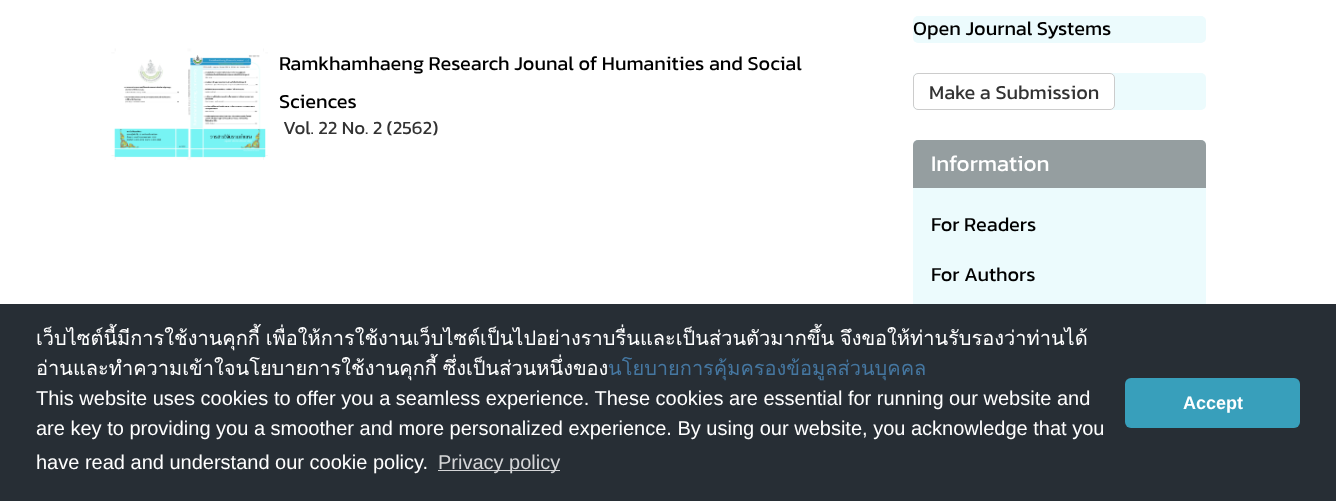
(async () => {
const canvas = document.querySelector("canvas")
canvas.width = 1336
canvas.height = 501
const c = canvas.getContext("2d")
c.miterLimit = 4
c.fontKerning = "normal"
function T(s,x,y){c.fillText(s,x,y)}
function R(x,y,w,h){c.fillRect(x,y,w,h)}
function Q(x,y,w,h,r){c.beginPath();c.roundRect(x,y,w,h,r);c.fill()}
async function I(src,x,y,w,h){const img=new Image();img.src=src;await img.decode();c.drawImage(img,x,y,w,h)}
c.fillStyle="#fff"
R(0,0,1336,501)
await I("1.png",111,48,157,112)
c.font="20px Kanit"
c.fillStyle="#000"
T("Ramkhamhaeng Research Jounal of Humanities and Social",279,70)
T("Sciences",279,108)
c.font="18.75px Kanit"
c.fillStyle="#333"
T("Vol. 22 No. 2 (2562)",283,134)
c.fillStyle="#ecfbfd"
Q(913,16,293,27,5)
c.font="20px Kanit"
c.fillStyle="#000"
T("Open Journal Systems",913,35)
c.fillStyle="#ecfbfd"
Q(913,73,293,37,5)
c.fillStyle="#fff"
c.beginPath()
c.roundRect(913.5,73.5,201,36,4.5)
c.fill()
c.strokeStyle="#ccc"
c.stroke()
c.fillStyle="#333"
T("Make a Submission",929,99)
c.fillStyle="#ecfbfd"
Q(913,140,293,173,5)
c.fillStyle="#959ea0"
c.beginPath()
c.roundRect(913,140,293,48,[5,5,0,0])
c.fill()
c.font="22.5px Kanit"
c.fillStyle="#fff"
T("Information",931,171)
c.font="20px Kanit"
c.fillStyle="#000"
T("For Readers",931,231)
T("For Authors",931,281)
c.fillStyle="#272e35"
R(0,304,1336,197)
c.wordSpacing="-1px"
c.font="20px Loma"
c.fillStyle="#fff"
T("เว็บไซต์นี้มีการใช้งานคุกกี้ เพื่อให้การใช้งานเว็บไซต์เป็นไปอย่างราบรื่นและเป็นส่วนตัวมากขึ้น จึงขอให้ท่านรับรองว่าท่านได้",36,345)
T("อ่านและทำความเข้าใจนโยบายการใช้งานคุกกี้ ซึ่งเป็นส่วนหนึ่งของ",36,375)
c.wordSpacing="0px"
c.fillStyle="#4577a1"
T("นโยบายการคุ้มครองข้อมูลส่วนบุคคล",608,375)
c.font="20px Liberation Sans"
c.fillStyle="#fff"
T("This website uses cookies to offer you a seamless experience. These cookies are essential for running our website and",36,405)
T("are key to providing you a smoother and more personalized experience. By using our website, you acknowledge that you",36,435)
T("have read and understand our cookie policy.",36,469)
c.fillStyle="#d4d5d7"
R(438,470,122,1)
T("Privacy policy",438,469)
c.fillStyle="#389fbb"
Q(1125,378,175,50,6)
c.font="bold 18px Liberation Sans"
c.fillStyle="#fff"
T("Accept",1183,409)
})()
